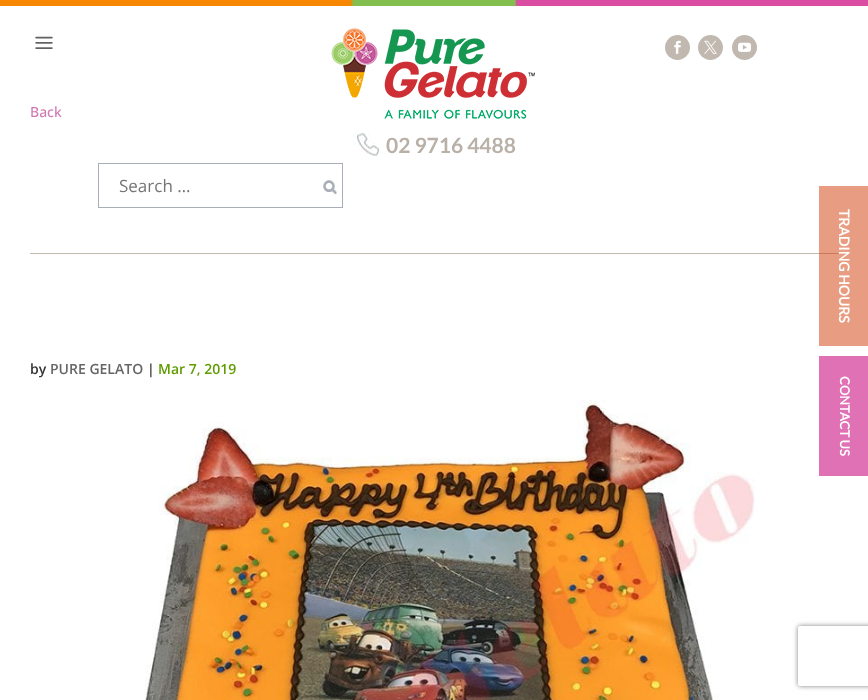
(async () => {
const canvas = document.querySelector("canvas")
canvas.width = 868
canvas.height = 700
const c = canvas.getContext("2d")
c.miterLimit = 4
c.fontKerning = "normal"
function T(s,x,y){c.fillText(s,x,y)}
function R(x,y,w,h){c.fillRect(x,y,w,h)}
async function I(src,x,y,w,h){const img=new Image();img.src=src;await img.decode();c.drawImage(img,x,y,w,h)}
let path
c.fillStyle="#fff"
R(0,0,868,700)
c.fillStyle="#e89d82"
R(819,186,49,160)
await I("1.png",0,0,868,6)
c.fillStyle="#c1b9b0"
R(30,253,789,1)
c.fillStyle="#c8795a"
R(819,253,19,1)
await I("2.png",35,36,18,13)
c.fillStyle="#c1b9b0"
c.beginPath()
c.arc(677.5,47.5,12.5,0,7)
c.fill()
await I("3.png",674,40,7,14)
c.beginPath()
c.arc(710.5,47.5,12.5,0,7)
c.fill()
await I("4.png",704,40,13,14)
c.beginPath()
c.arc(744.5,47.5,12.5,0,7)
c.fill()
await I("5.png",738,42,13,10)
c.font="500 14px Open Sans"
c.fillStyle="#d278b0"
T("Back",30,117)
await I("6.png",331,27,204,92)
await I("7.png",353,132,27,24)
c.font="bold 21px Lato"
c.fillStyle="#b9b0a7"
T("02 9716 4488",386,153)
c.strokeStyle="#a7aeb8"
c.strokeRect(98.5,163.5,244,44)
c.font="17px Open Sans"
c.fillStyle="#757575"
T("Search …",119,192)
await I("8.png",323,180,14,14)
c.font="600 14px Open Sans"
c.fillStyle="#333"
T("by",30,374)
c.fillStyle="#666"
T("PURE GELATO",50,374)
c.fillStyle="#333"
T("|",147,374)
c.fillStyle="#619c04"
T("Mar 7, 2019",158,374)
await I("9.png",145,400,610,300)
c.font="bold 14px 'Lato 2'"
c.fillStyle="#fff"
c.save()
c.translate(839,209)
c.rotate(90 * Math.PI / 180)
c.fillText("TRADING HOURS",0,0)
c.restore()
c.fillStyle="#e171b5"
R(819,356,49,120)
c.font="bold 13px 'Lato 2'"
c.fillStyle="#fff"
c.save()
c.translate(840,376)
c.rotate(90 * Math.PI / 180)
c.fillText("CONTACT US",0,0)
c.restore()
c.save()
path = new Path2D("M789 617h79v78h-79zm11 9h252c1 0 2 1 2 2v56c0 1-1 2-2 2h-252c-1 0-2-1-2-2v-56c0-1 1-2 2-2z")
c.clip(path,"evenodd")
c.fillStyle="#808080"
c.filter="blur(2.5px)"
c.beginPath()
c.roundRect(798,626,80,60,2)
c.fill()
c.filter="none"
c.restore()
})()
